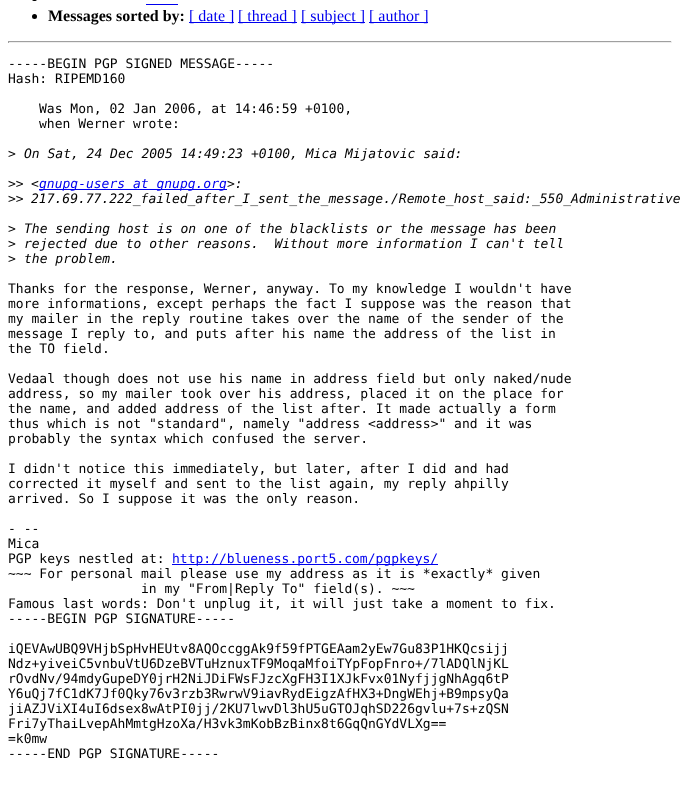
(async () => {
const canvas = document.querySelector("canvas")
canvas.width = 680
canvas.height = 801
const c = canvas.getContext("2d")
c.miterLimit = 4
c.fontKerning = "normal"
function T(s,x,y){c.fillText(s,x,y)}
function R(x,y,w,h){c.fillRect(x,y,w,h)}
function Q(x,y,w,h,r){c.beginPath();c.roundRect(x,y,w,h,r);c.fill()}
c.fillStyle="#fff"
R(0,0,680,801)
c.fillStyle="#000"
Q(32,-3,5,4,2.5)
c.fillStyle="#00e"
R(146,4,32,1)
c.fillStyle="#000"
c.beginPath()
c.arc(34.5,16.5,2.5,0,7)
c.fill()
c.font="bold 16px Liberation Serif"
T("Messages sorted by:",48,21)
c.fillStyle="#00e"
R(189,22,45,1)
c.font="16px Liberation Serif"
T("[ date ]",189,21)
R(238,22,59,1)
T("[ thread ]",238,21)
R(301,22,64,1)
T("[ subject ]",301,21)
R(369,22,59,1)
T("[ author ]",369,21)
c.fillStyle="#9f9f9f"
R(8,41,664,1)
c.fillStyle="#eee"
R(671,41,1,2)
R(8,42,664,1)
c.fillStyle="#9f9f9f"
R(8,41,1,2)
c.font="13px DejaVu Sans Mono"
c.fillStyle="#000"
T("-----BEGIN PGP SIGNED MESSAGE-----",8,68)
T("Hash: RIPEMD160",8,83)
T("Was Mon, 02 Jan 2006, at 14:46:59 +0100,",39,113)
T("when Werner wrote:",39,128)
T(">",8,158)
c.font="italic 13px DejaVu Sans Mono"
T("On Sat, 24 Dec 2005 14:49:23 +0100, Mica Mijatovic said:",24,158)
c.font="13px DejaVu Sans Mono"
T(">>",8,188)
c.font="italic 13px DejaVu Sans Mono"
T("<",31,188)
c.fillStyle="#00e"
R(39,189,188,1)
T("gnupg-users at gnupg.org",39,188)
c.fillStyle="#000"
T(">:",227,188)
c.font="13px DejaVu Sans Mono"
T(">>",8,203)
c.font="italic 13px DejaVu Sans Mono"
T("217.69.77.222_failed_after_I_sent_the_message./Remote_host_said:_550_Administrative",31,203)
c.font="13px DejaVu Sans Mono"
T(">",8,233)
c.font="italic 13px DejaVu Sans Mono"
T("The sending host is on one of the blacklists or the message has been",24,233)
c.font="13px DejaVu Sans Mono"
T(">",8,248)
c.font="italic 13px DejaVu Sans Mono"
T("rejected due to other reasons.  Without more information I can't tell",24,248)
c.font="13px DejaVu Sans Mono"
T(">",8,263)
c.font="italic 13px DejaVu Sans Mono"
T("the problem.",24,263)
c.font="13px DejaVu Sans Mono"
T("Thanks for the response, Werner, anyway. To my knowledge I wouldn't have",8,293)
T("more informations, except perhaps the fact I suppose was the reason that",8,308)
T("my mailer in the reply routine takes over the name of the sender of the",8,323)
T("message I reply to, and puts after his name the address of the list in",8,338)
T("the TO field.",8,353)
T("Vedaal though does not use his name in address field but only naked/nude",8,383)
T("address, so my mailer took over his address, placed it on the place for",8,398)
T("the name, and added address of the list after. It made actually a form",8,413)
T("thus which is not \"standard\", namely \"address <address>\" and it was",8,428)
T("probably the syntax which confused the server.",8,443)
T("I didn't notice this immediately, but later, after I did and had",8,473)
T("corrected it myself and sent to the list again, my reply ahpilly",8,488)
T("arrived. So I suppose it was the only reason.",8,503)
T("- --",8,533)
T("Mica",8,548)
T("PGP keys nestled at:",8,563)
c.fillStyle="#00e"
R(172,564,266,1)
T("http://blueness.port5.com/pgpkeys/",172,563)
c.fillStyle="#000"
T("~~~ For personal mail please use my address as it is *exactly* given",8,578)
T("in my \"From|Reply To\" field(s). ~~~",141,593)
T("Famous last words: Don't unplug it, it will just take a moment to fix.",8,608)
T("-----BEGIN PGP SIGNATURE-----",8,623)
T("iQEVAwUBQ9VHjbSpHvHEUtv8AQOccggAk9f59fPTGEAam2yEw7Gu83P1HKQcsijj",8,653)
T("Ndz+yiveiC5vnbuVtU6DzeBVTuHznuxTF9MoqaMfoiTYpFopFnro+/7lADQlNjKL",8,668)
T("rOvdNv/94mdyGupeDY0jrH2NiJDiFWsFJzcXgFH3I1XJkFvx01NyfjjgNhAgq6tP",8,683)
T("Y6uQj7fC1dK7Jf0Qky76v3rzb3RwrwV9iavRydEigzAfHX3+DngWEhj+B9mpsyQa",8,698)
T("jiAZJViXI4uI6dsex8wAtPI0jj/2KU7lwvDl3hU5uGTOJqhSD226gvlu+7s+zQSN",8,713)
T("Fri7yThaiLvepAhMmtgHzoXa/H3vk3mKobBzBinx8t6GqQnGYdVLXg==",8,728)
T("=k0mw",8,743)
T("-----END PGP SIGNATURE-----",8,758)
})()
